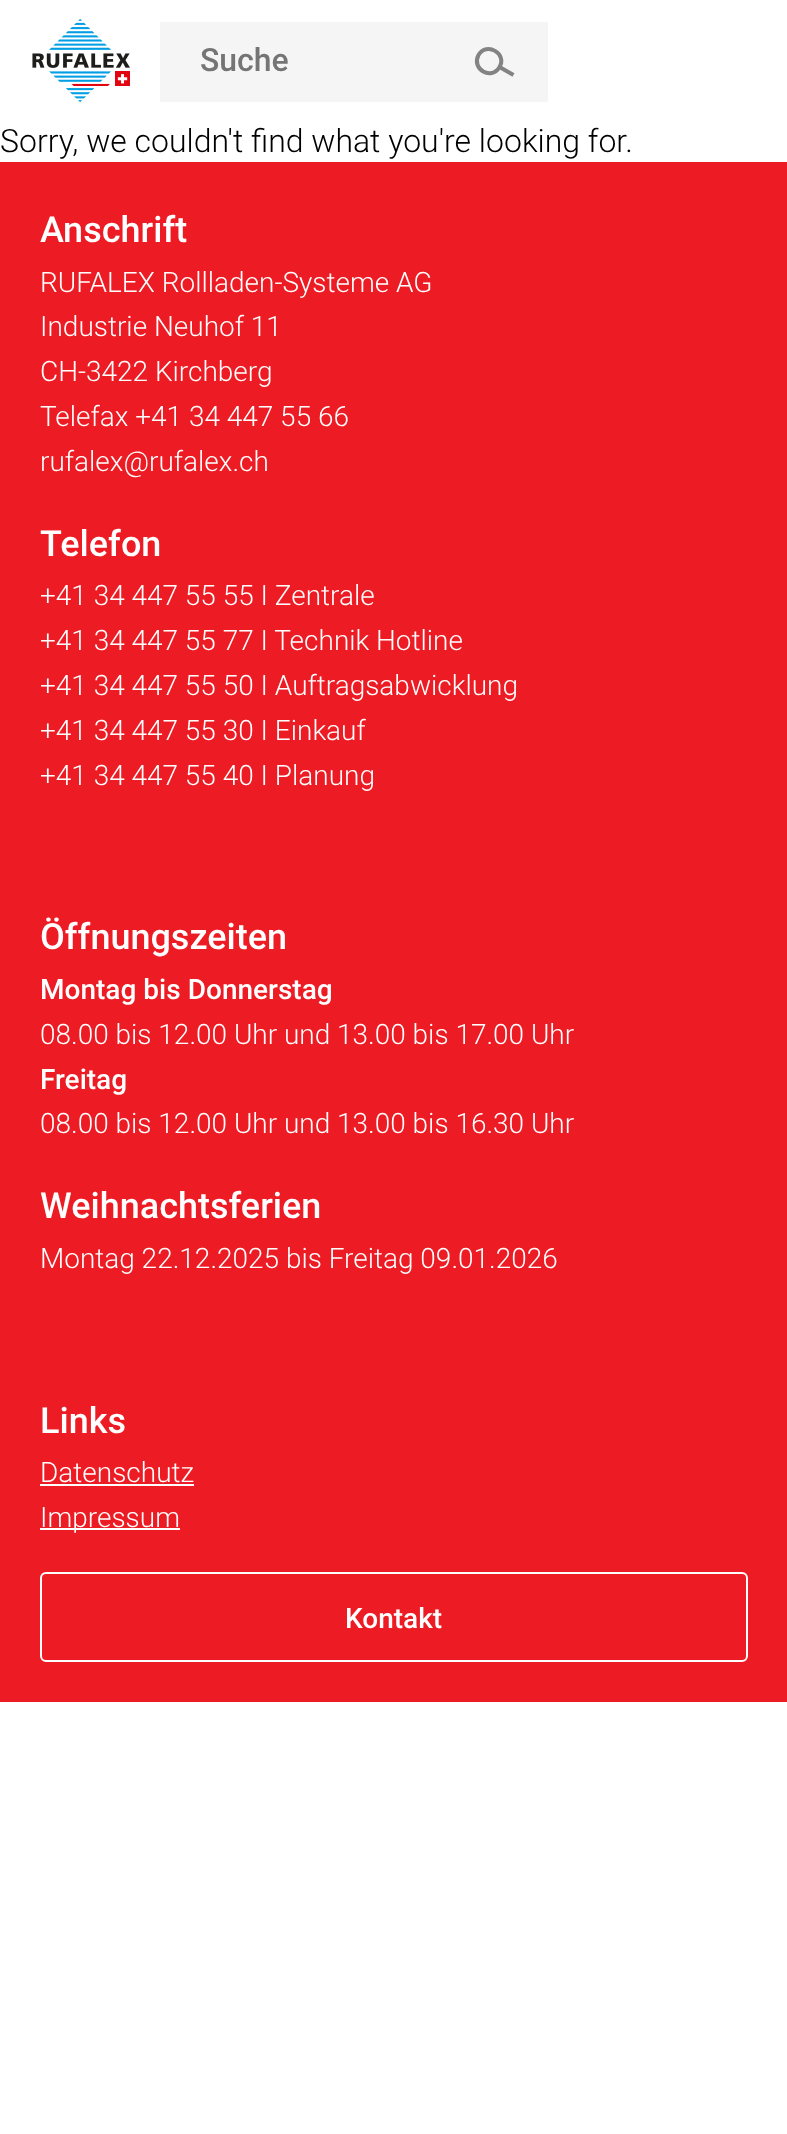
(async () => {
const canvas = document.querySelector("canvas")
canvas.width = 787
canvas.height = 2134
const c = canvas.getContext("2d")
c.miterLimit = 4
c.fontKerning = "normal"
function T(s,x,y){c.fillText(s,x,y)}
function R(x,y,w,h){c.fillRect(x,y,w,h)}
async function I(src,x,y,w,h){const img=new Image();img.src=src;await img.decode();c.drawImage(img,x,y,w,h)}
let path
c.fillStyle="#fff"
R(0,0,787,2134)
await I("1.png",32,18,98,85)
c.fillStyle="#f5f5f5"
R(160,22,388,80)
c.font="500 32px Roboto"
c.fillStyle="#757575"
T("Suche",200,71)
path = new Path2D("M478.5 55c8-13.5 29-1.5 21 12c-8 14-28.5 2-21-12zm21 12l14 8")
c.strokeStyle="#838383"
c.lineWidth=4
c.stroke(path)
c.font="300 32px Roboto"
c.fillStyle="#000"
T("Sorry, we couldn't find what you're looking for.",0,152)
c.fillStyle="#ed1c24"
R(0,162,787,1540)
c.font="500 36px Roboto"
c.fillStyle="#fff"
T("Anschrift",40,242)
c.font="300 28px Roboto"
T("RUFALEX Rollladen-Systeme AG",40,292)
T("Industrie Neuhof 11",40,336)
T("CH-3422 Kirchberg",40,381)
T("Telefax +41 34 447 55 66",40,426)
T("rufalex@rufalex.ch",40,471)
c.font="500 36px Roboto"
T("Telefon",40,556)
c.font="300 28px Roboto"
T("+41 34 447 55 55 I Zentrale",40,605)
T("+41 34 447 55 77 I Technik Hotline",40,650)
T("+41 34 447 55 50 I Auftragsabwicklung",40,695)
T("+41 34 447 55 30 I Einkauf",40,740)
T("+41 34 447 55 40 I Planung",40,785)
c.font="500 36px Roboto"
T("Öffnungszeiten",40,949)
c.font="500 28px Roboto"
T("Montag bis Donnerstag",40,999)
c.font="300 28px Roboto"
T("08.00 bis 12.00 Uhr und 13.00 bis 17.00 Uhr",40,1044)
c.font="500 28px Roboto"
T("Freitag",40,1089)
c.font="300 28px Roboto"
T("08.00 bis 12.00 Uhr und 13.00 bis 16.30 Uhr",40,1133)
c.font="500 36px Roboto"
T("Weihnachtsferien",40,1218)
c.font="300 28px Roboto"
T("Montag 22.12.2025 bis Freitag 09.01.2026",40,1268)
c.font="500 36px Roboto"
T("Links",40,1433)
c.font="300 28px Roboto"
T("Datenschutz",40,1482)
R(40,1484,154,2)
R(40,1528,140,2)
T("Impressum",40,1527)
c.beginPath()
c.roundRect(41,1573,706,88,5)
c.strokeStyle="#fff"
c.lineWidth=2
c.stroke()
c.font="500 28px Roboto"
T("Kontakt",345,1628)
})()
